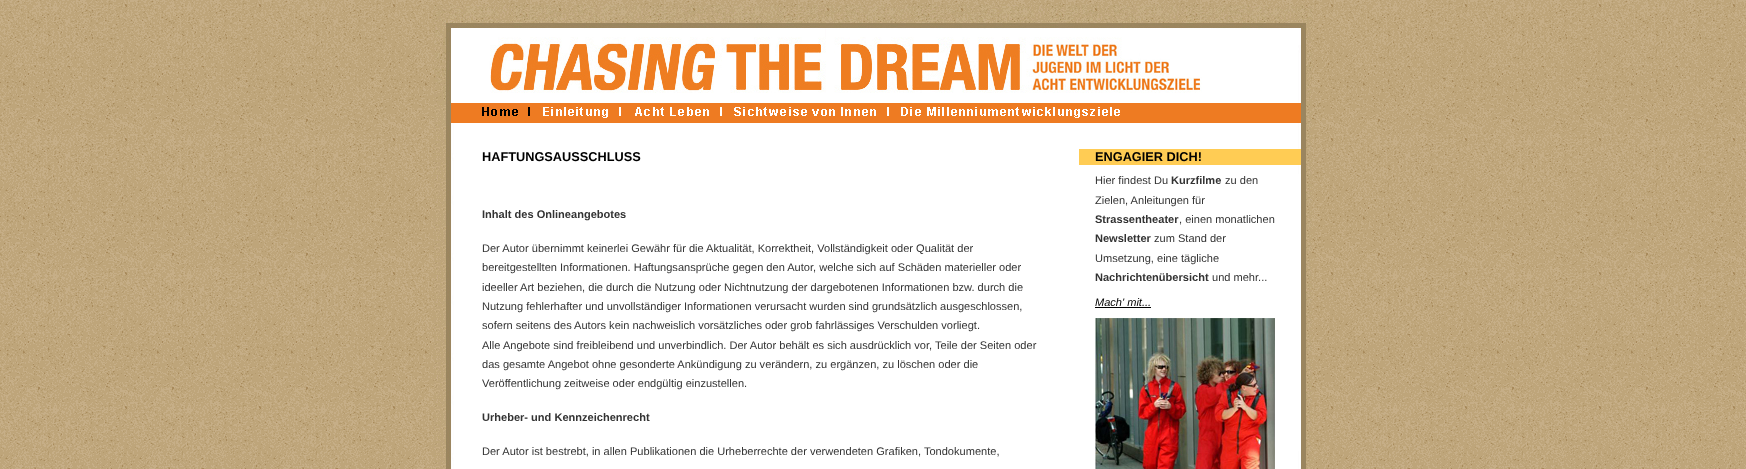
(async () => {
const canvas = document.querySelector("canvas")
canvas.width = 1746
canvas.height = 469
const c = canvas.getContext("2d")
c.miterLimit = 4
c.fontKerning = "normal"
function T(s,x,y){c.fillText(s,x,y)}
function R(x,y,w,h){c.fillRect(x,y,w,h)}
async function I(src,x,y,w,h){const img=new Image();img.src=src;await img.decode();c.drawImage(img,x,y,w,h)}
c.fillStyle="#fff"
R(0,0,1746,469)
await I("1.png",0,0,1746,469)
await I("2.png",434,106,878,363)
await I("3.png",434,5,878,101)
c.fillStyle="#ee7b22"
R(451,103,850,20)
await I("4.png",482,107,48,9)
await I("5.png",543,107,78,11)
await I("6.png",635,107,87,9)
await I("7.png",734,107,155,9)
await I("8.png",901,107,219,11)
c.font="bold 12.75px Liberation Sans"
c.fillStyle="#000"
T("HAFTUNGSAUSSCHLUSS",482,161)
c.font="bold 11.05px Liberation Sans"
c.fillStyle="#333"
T("Inhalt des Onlineangebotes",482,218)
c.font="11.05px Liberation Sans"
T("Der Autor übernimmt keinerlei Gewähr für die Aktualität, Korrektheit, Vollständigkeit oder Qualität der",482,252)
T("bereitgestellten Informationen. Haftungsansprüche gegen den Autor, welche sich auf Schäden materieller oder",482,271)
T("ideeller Art beziehen, die durch die Nutzung oder Nichtnutzung der dargebotenen Informationen bzw. durch die",482,291)
T("Nutzung fehlerhafter und unvollständiger Informationen verursacht wurden sind grundsätzlich ausgeschlossen,",482,310)
T("sofern seitens des Autors kein nachweislich vorsätzliches oder grob fahrlässiges Verschulden vorliegt.",482,329)
T("Alle Angebote sind freibleibend und unverbindlich. Der Autor behält es sich ausdrücklich vor, Teile der Seiten oder",482,349)
T("das gesamte Angebot ohne gesonderte Ankündigung zu verändern, zu ergänzen, zu löschen oder die",482,368)
T("Veröffentlichung zeitweise oder endgültig einzustellen.",482,387)
c.font="bold 11.05px Liberation Sans"
T("Urheber- und Kennzeichenrecht",482,421)
c.font="11.05px Liberation Sans"
T("Der Autor ist bestrebt, in allen Publikationen die Urheberrechte der verwendeten Grafiken, Tondokumente,",482,455)
c.fillStyle="#fff"
R(1298,174,3,277)
c.fillStyle="#ffcc54"
R(1079,149,222,16)
c.font="bold 12.75px Liberation Sans"
c.fillStyle="#000"
T("ENGAGIER DICH!",1095,161)
c.font="11.05px Liberation Sans"
c.fillStyle="#333"
T("Hier findest Du",1095,184)
c.font="bold 11.05px Liberation Sans"
T("Kurzfilme",1171,184)
c.font="11.05px Liberation Sans"
T("zu den",1225,184)
T("Zielen, Anleitungen für",1095,204)
c.font="bold 11.05px Liberation Sans"
T("Strassentheater",1095,223)
c.font="11.05px Liberation Sans"
T(", einen monatlichen",1179,223)
c.font="bold 11.05px Liberation Sans"
T("Newsletter",1095,242)
c.font="11.05px Liberation Sans"
T("zum Stand der",1154,242)
T("Umsetzung, eine tägliche",1095,262)
c.font="bold 11.05px Liberation Sans"
T("Nachrichtenübersicht",1095,281)
c.font="11.05px Liberation Sans"
T("und mehr...",1212,281)
c.font="italic 11.05px Liberation Sans"
c.fillStyle="#000"
T("Mach' mit...",1095,306)
R(1095,307,56,1)
await I("9.png",1095,318,180,151)
})()
